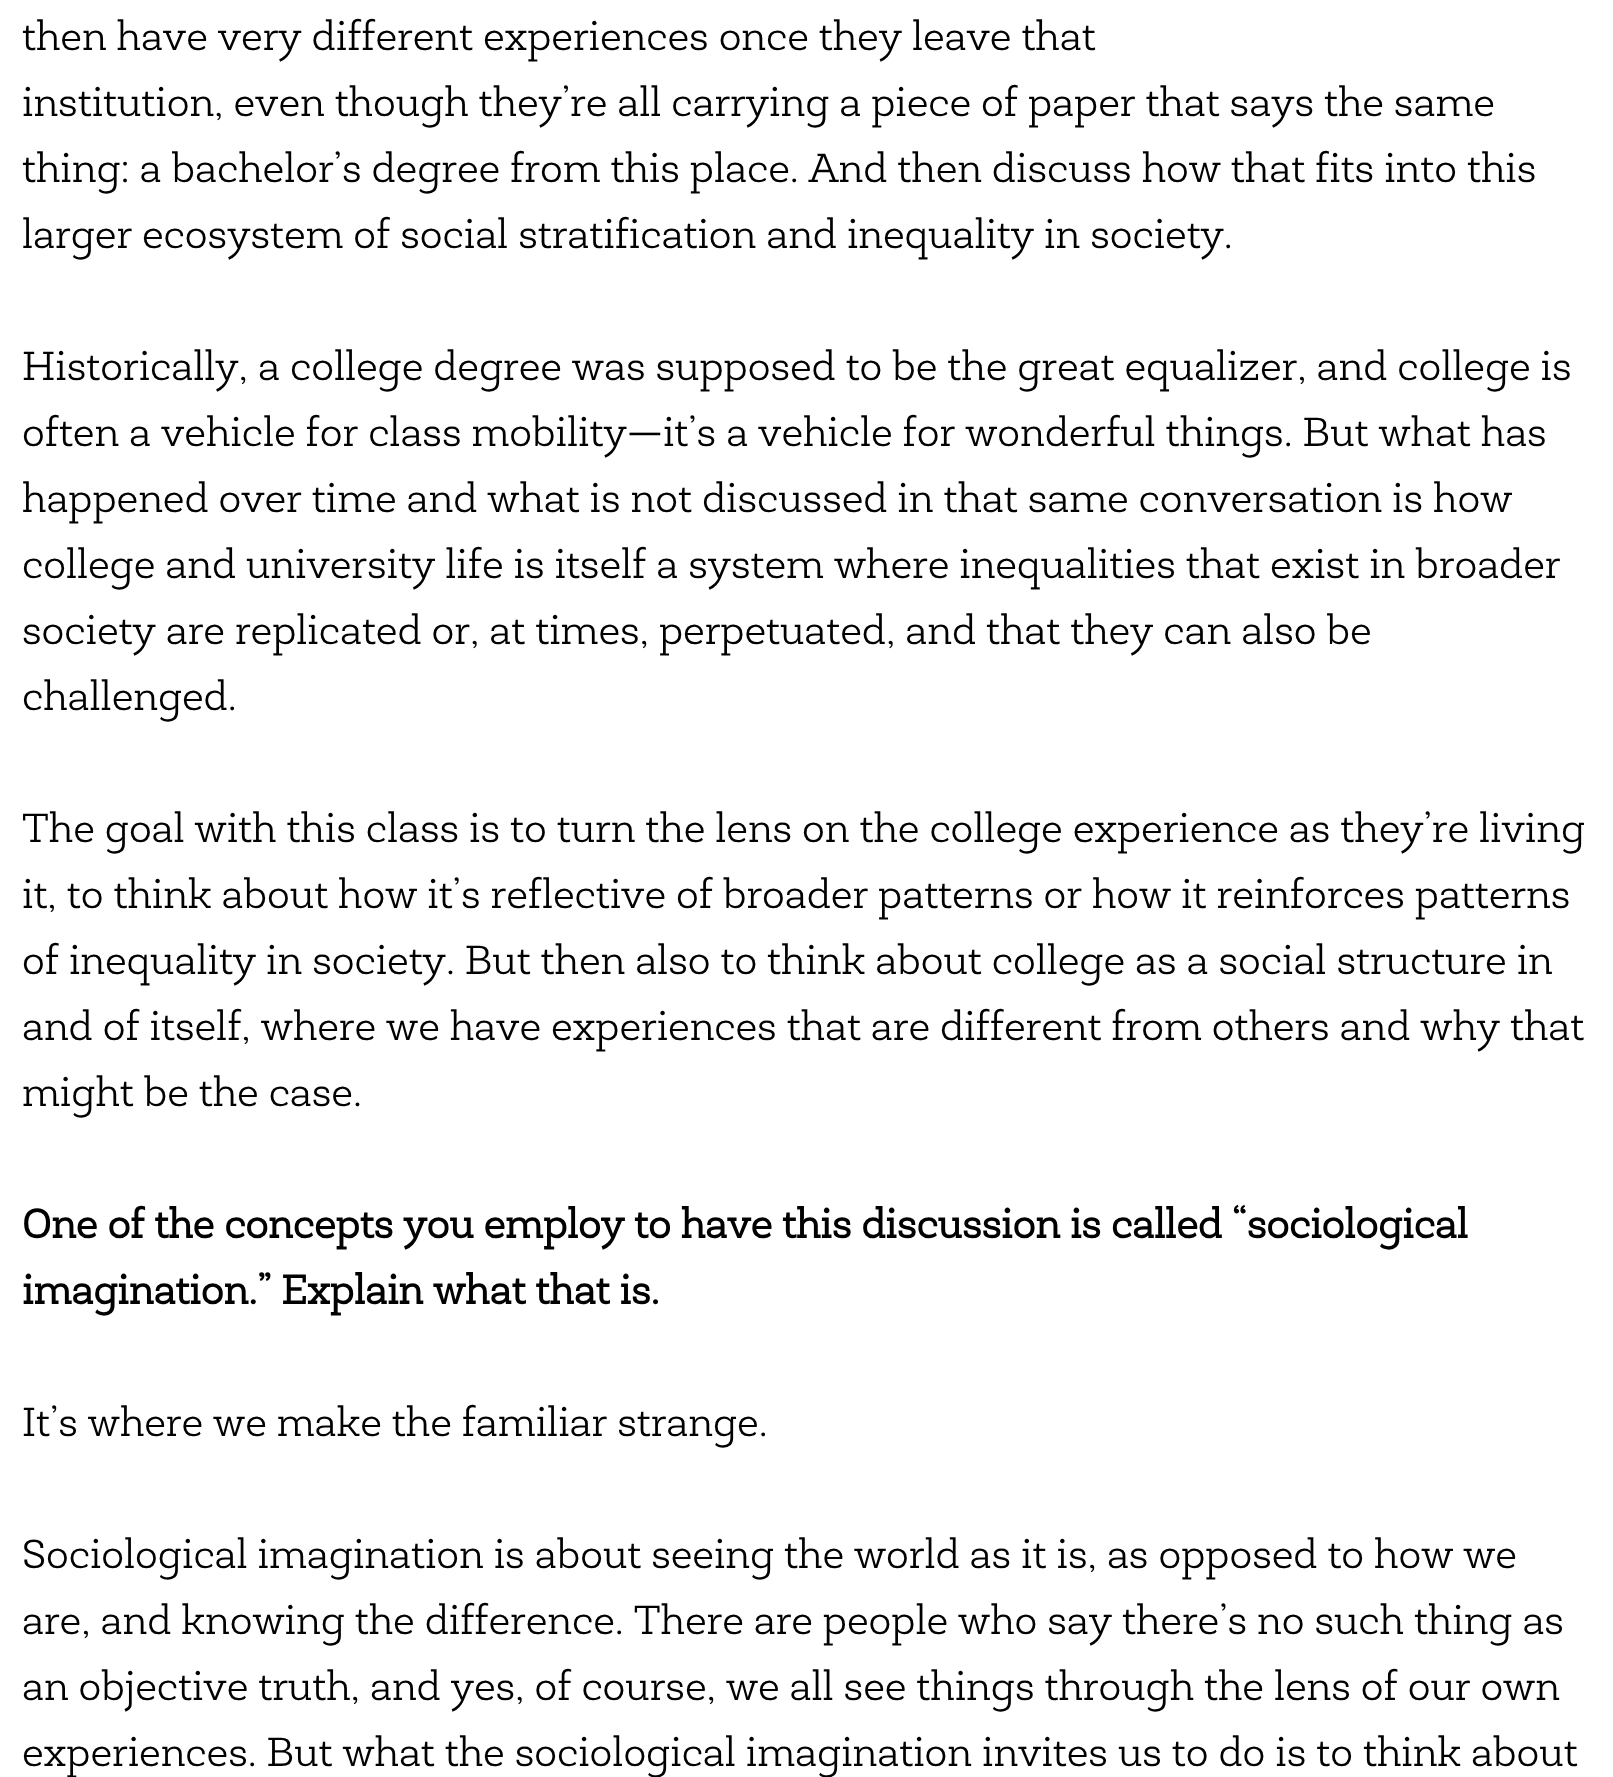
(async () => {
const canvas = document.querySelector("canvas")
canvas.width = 1613
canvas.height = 1777
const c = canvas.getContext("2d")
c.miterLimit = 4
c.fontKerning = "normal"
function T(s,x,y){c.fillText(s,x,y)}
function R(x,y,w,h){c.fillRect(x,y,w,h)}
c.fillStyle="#fff"
R(0,0,1613,1777)
c.font="41.25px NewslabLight"
c.fillStyle="#000"
T("then have very different experiences once they leave that",22,50)
T("institution, even though they’re all carrying a piece of paper that says the same",22,116)
T("thing: a bachelor’s degree from this place. And then discuss how that fits into this",22,182)
T("larger ecosystem of social stratification and inequality in society.",22,248)
T("Historically, a college degree was supposed to be the great equalizer, and college is",22,380)
T("often a vehicle for class mobility—it’s a vehicle for wonderful things. But what has",22,446)
T("happened over time and what is not discussed in that same conversation is how",22,512)
T("college and university life is itself a system where inequalities that exist in broader",22,578)
T("society are replicated or, at times, perpetuated, and that they can also be",22,644)
T("challenged.",22,710)
T("The goal with this class is to turn the lens on the college experience as they’re living",22,842)
T("it, to think about how it’s reflective of broader patterns or how it reinforces patterns",22,908)
T("of inequality in society. But then also to think about college as a social structure in",22,974)
T("and of itself, where we have experiences that are different from others and why that",22,1040)
T("might be the case.",22,1106)
c.font="bold 41.25px NewslabLight"
T("One of the concepts you employ to have this discussion is called “sociological",22,1238)
T("imagination.” Explain what that is.",22,1304)
c.font="41.25px NewslabLight"
T("It’s where we make the familiar strange.",22,1436)
T("Sociological imagination is about seeing the world as it is, as opposed to how we",22,1568)
T("are, and knowing the difference. There are people who say there’s no such thing as",22,1634)
T("an objective truth, and yes, of course, we all see things through the lens of our own",22,1700)
T("experiences. But what the sociological imagination invites us to do is to think about",22,1766)
})()
